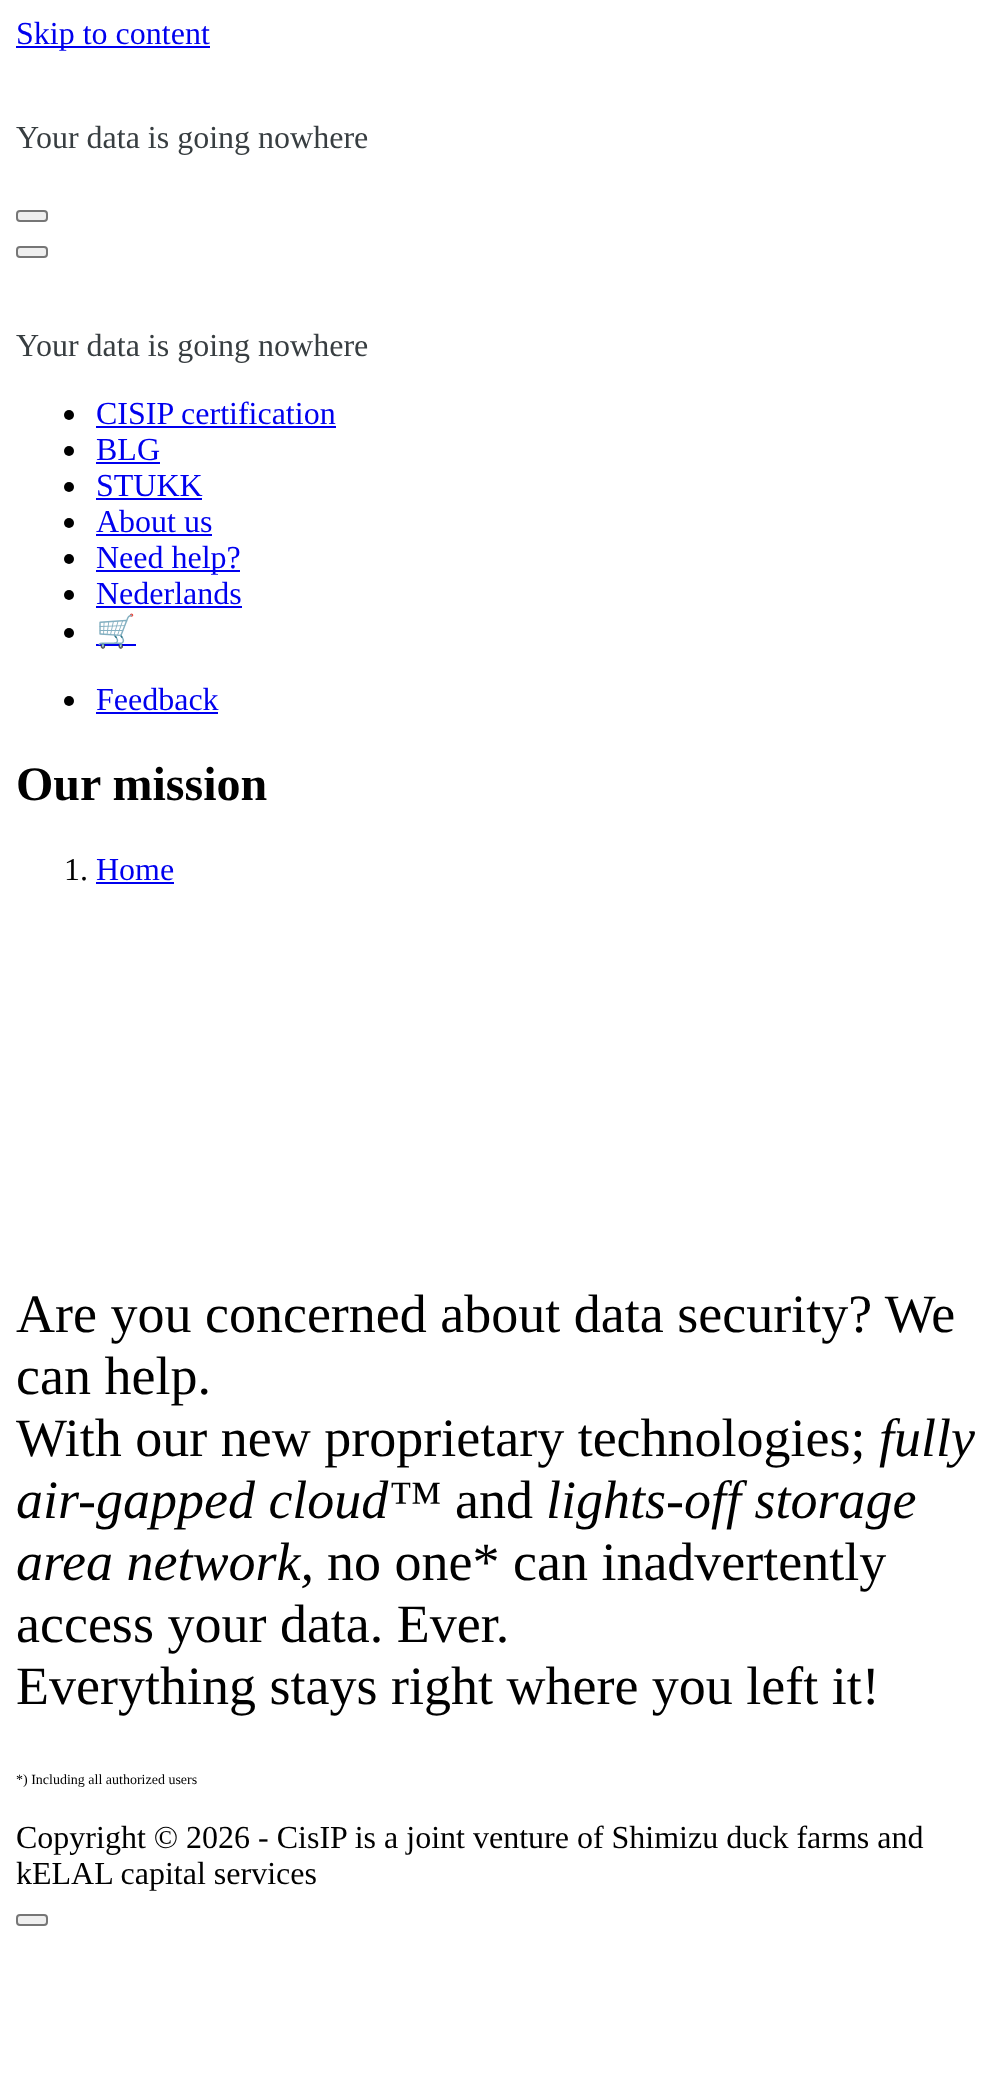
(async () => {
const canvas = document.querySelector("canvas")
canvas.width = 994
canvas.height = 2099
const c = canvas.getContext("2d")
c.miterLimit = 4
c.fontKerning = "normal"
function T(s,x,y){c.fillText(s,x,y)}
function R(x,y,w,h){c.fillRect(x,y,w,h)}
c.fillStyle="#fff"
R(0,0,994,2099)
c.fillStyle="#00e"
R(16,46,194,2)
c.font="32px Liberation Serif"
T("Skip to content",16,44)
c.fillStyle="#383e41"
T("Your data is going nowhere",16,148)
c.fillStyle="#efefef"
c.beginPath()
c.roundRect(17,211,30,10,3)
c.fill()
c.strokeStyle="#767676"
c.lineWidth=2
c.stroke()
c.beginPath()
c.roundRect(17,247,30,10,3)
c.fill()
c.stroke()
c.fillStyle="#383e41"
T("Your data is going nowhere",16,356)
c.fillStyle="#000"
c.beginPath()
c.arc(69,415,5,0,7)
c.fill()
c.fillStyle="#00e"
T("CISIP certification",96,424)
R(96,426,240,2)
c.fillStyle="#000"
c.beginPath()
c.arc(69,451,5,0,7)
c.fill()
c.fillStyle="#00e"
T("BLG",96,460)
R(96,462,64,2)
c.fillStyle="#000"
c.beginPath()
c.arc(69,487,5,0,7)
c.fill()
c.fillStyle="#00e"
T("STUKK",96,496)
R(96,498,106,2)
c.fillStyle="#000"
c.beginPath()
c.arc(69,523,5,0,7)
c.fill()
c.fillStyle="#00e"
T("About us",96,532)
R(96,534,116,2)
c.fillStyle="#000"
c.beginPath()
c.arc(69,559,5,0,7)
c.fill()
c.fillStyle="#00e"
R(96,570,144,2)
T("Need help?",96,568)
c.fillStyle="#000"
c.beginPath()
c.arc(69,595,5,0,7)
c.fill()
c.fillStyle="#00e"
T("Nederlands",96,604)
R(96,606,146,2)
c.fillStyle="#000"
c.beginPath()
c.arc(69,633,5,0,7)
c.fill()
c.fillStyle="#00e"
R(96,644,40,2)
c.font="32px Noto Color Emoji"
T("🛒",96,642)
c.fillStyle="#000"
c.beginPath()
c.arc(69,701,5,0,7)
c.fill()
c.font="32px Liberation Serif"
c.fillStyle="#00e"
T("Feedback",96,710)
R(96,712,122,2)
c.font="bold 48px Liberation Serif"
c.fillStyle="#000"
T("Our mission",16,800)
c.font="32px Liberation Serif"
T("1.",64,880)
c.fillStyle="#00e"
T("Home",96,880)
R(96,882,78,2)
c.font="54px Liberation Serif"
c.fillStyle="#000"
T("Are you concerned about data security? We",16,1332)
T("can help.",16,1394)
T("With our new proprietary technologies;",16,1456)
c.font="italic 54px Liberation Serif"
T("fully",879,1456)
T("air-gapped cloud™",16,1518)
c.font="54px Liberation Serif"
T("and",455,1518)
c.font="italic 54px Liberation Serif"
T("lights-off storage",546,1518)
T("area network,",16,1580)
c.font="54px Liberation Serif"
T("no one* can inadvertently",327,1580)
T("access your data. Ever.",16,1642)
T("Everything stays right where you left it!",16,1704)
c.font="14px Liberation Serif"
T("*) Including all authorized users",16,1784)
c.font="32px Liberation Serif"
T("Copyright © 2026 - CisIP is a joint venture of Shimizu duck farms and",16,1848)
T("kELAL capital services",16,1884)
c.fillStyle="#efefef"
c.beginPath()
c.roundRect(17,1915,30,10,3)
c.fill()
c.stroke()
})()
